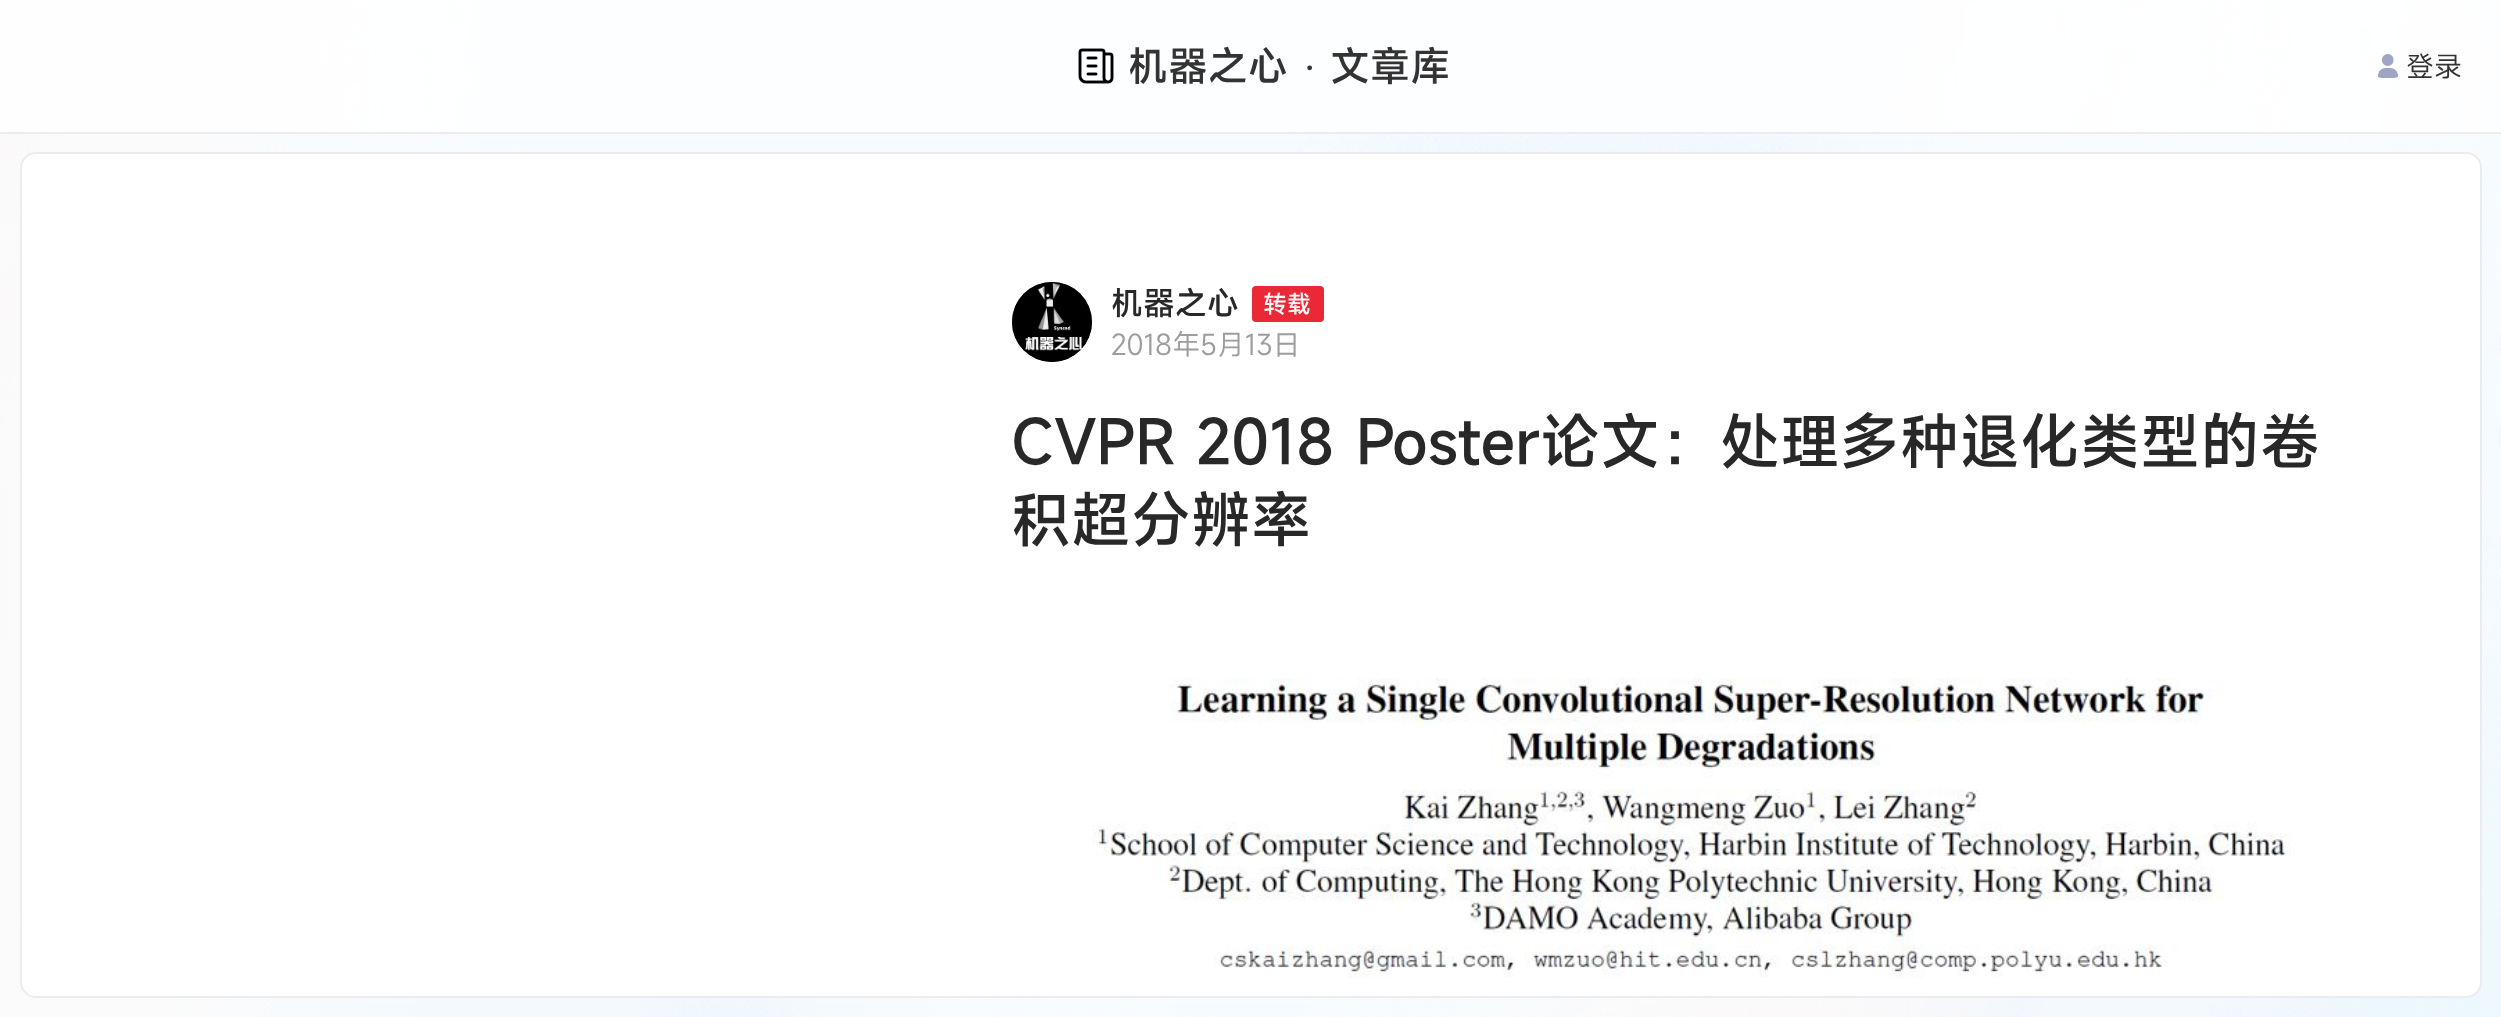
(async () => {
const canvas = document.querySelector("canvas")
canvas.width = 2501
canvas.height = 1017
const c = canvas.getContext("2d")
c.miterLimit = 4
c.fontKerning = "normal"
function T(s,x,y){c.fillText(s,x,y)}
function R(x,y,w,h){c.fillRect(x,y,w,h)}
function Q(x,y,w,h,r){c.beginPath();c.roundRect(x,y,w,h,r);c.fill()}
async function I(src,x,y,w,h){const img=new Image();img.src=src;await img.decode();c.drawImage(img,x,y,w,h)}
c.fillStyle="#fff"
R(0,0,2501,1017)
await I("1.png",0,0,2501,1017)
c.fillStyle="#ebecf1"
R(0,132,2501,2)
c.fillStyle="#ffffffcc"
R(0,0,2501,132)
await I("2.png",1078,48,36,37)
c.font="500 40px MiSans"
c.fillStyle="#333"
T("机器之心",1128,81)
c.font="40px Liberation Serif"
T("·",1303,81)
c.font="500 40px MiSans"
T("文章库",1330,81)
await I("3.png",2378,54,20,24)
c.font="28px MiSans"
T("登录",2406,77)
c.fillStyle="#fff"
c.beginPath()
c.roundRect(21,153,2460,844,15)
c.fill()
c.strokeStyle="#ebecf1"
c.lineWidth=2
c.stroke()
c.fillStyle="#333"
c.beginPath()
c.arc(1052,322,40,0,7)
c.fill()
await I("4.png",1012,282,80,80)
c.font="500 32px MiSans"
c.fillStyle="#282828"
T("机器之心",1111,315)
c.fillStyle="#eb2835"
Q(1252,286,72,36,4)
c.font="500 24px MiSans"
c.fillStyle="#f6f6f6"
T("转载",1263,313)
c.font="28px MiSans"
c.fillStyle="#9d9d9d"
T("2018年5月13日",1111,355)
c.font="500 60px MiSans"
c.fillStyle="#282828"
T("CVPR 2018 Poster论文：处理多种退化类型的卷",1011,464)
T("积超分辨率",1011,542)
await I("5.png",1092,678,1199,300)
})()
